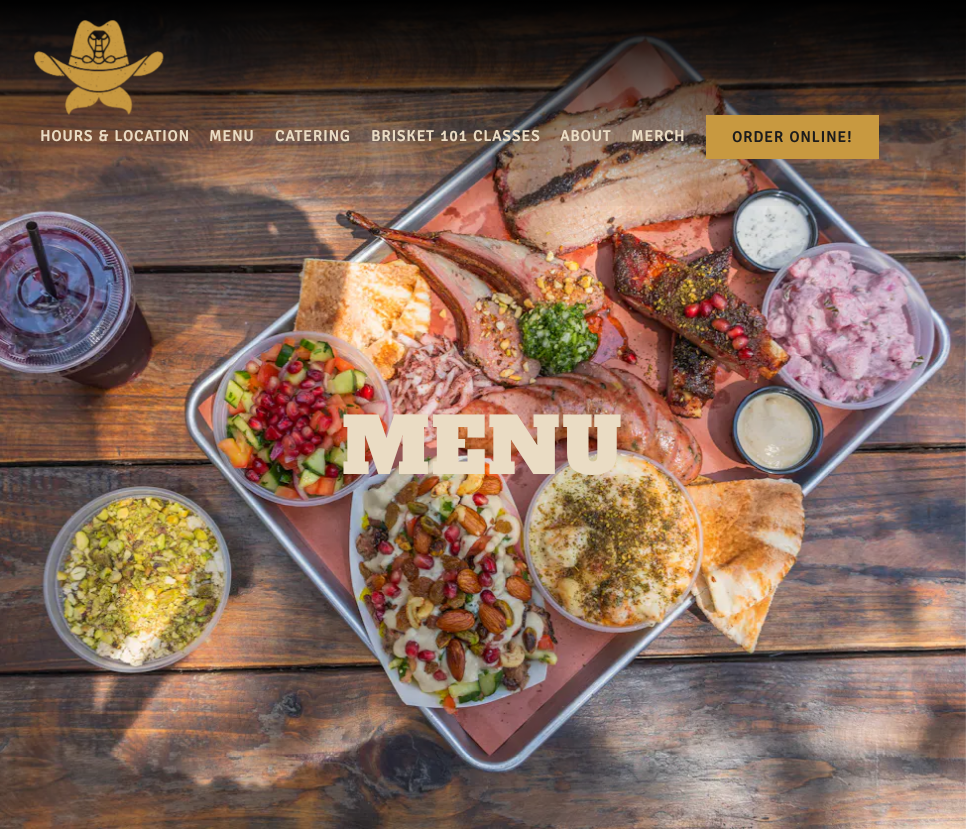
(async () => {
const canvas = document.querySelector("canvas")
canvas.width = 966
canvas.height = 829
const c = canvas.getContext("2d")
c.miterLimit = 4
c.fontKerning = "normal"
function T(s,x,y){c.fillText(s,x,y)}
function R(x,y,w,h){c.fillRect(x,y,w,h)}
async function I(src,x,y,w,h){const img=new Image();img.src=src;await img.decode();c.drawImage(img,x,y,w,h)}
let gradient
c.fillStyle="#fff"
R(0,0,966,829)
await I("2.png",0,1,966,828)
gradient = c.createLinearGradient(483,0,483,211)
gradient.addColorStop(0,"#000")
gradient.addColorStop(1,"#00000000")
c.fillStyle = gradient
R(0,0,966,206)
await I("1.png",34,20,130,95)
c.letterSpacing="1px"
c.wordSpacing="1px"
c.font="bold 15.25px Signika"
c.fillStyle="#eadcc4"
T("HOURS & LOCATION",40,141)
c.wordSpacing="0px"
T("MENU",209,141)
T("CATERING",275,141)
c.wordSpacing="1px"
T("BRISKET 101 CLASSES",371,141)
c.wordSpacing="0px"
T("ABOUT",560,141)
T("MERCH",631,141)
c.fillStyle="#c89940"
R(706,115,173,44)
c.wordSpacing="1px"
c.fillStyle="#1c1c1c"
T("ORDER ONLINE!",732,142)
c.letterSpacing="2px"
c.wordSpacing="0px"
c.font="76.5px Alfa Slab One"
c.fillStyle="#eadcc4"
T("MENU",342,474)
})()
